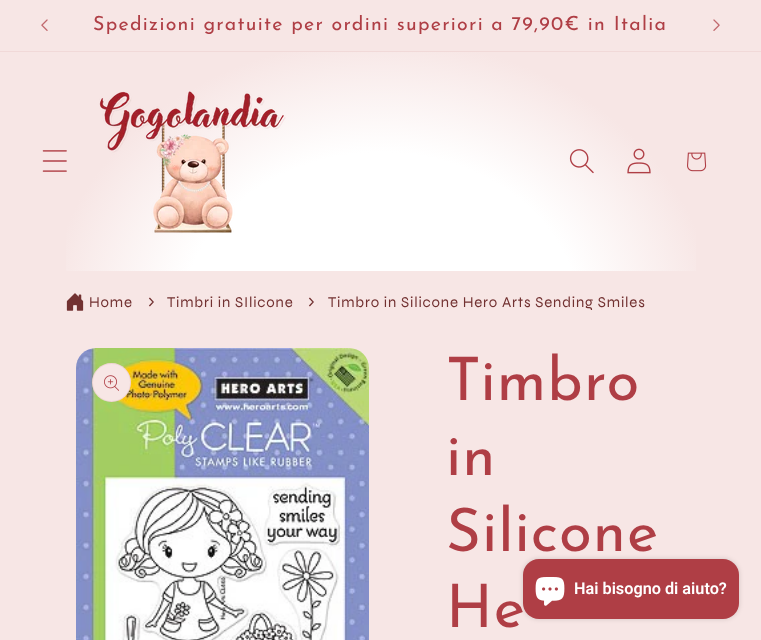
(async () => {
const canvas = document.querySelector("canvas")
canvas.width = 761
canvas.height = 640
const c = canvas.getContext("2d")
c.miterLimit = 4
c.fontKerning = "normal"
function T(s,x,y){c.fillText(s,x,y)}
function R(x,y,w,h){c.fillRect(x,y,w,h)}
function Q(x,y,w,h,r){c.beginPath();c.roundRect(x,y,w,h,r);c.fill()}
async function I(src,x,y,w,h){const img=new Image();img.src=src;await img.decode();c.drawImage(img,x,y,w,h)}
let gradient
c.fillStyle="#f7e6e5"
R(0,0,761,640)
c.fillStyle="#f1d9d8"
R(0,51,761,1)
await I("1.png",41,19,7,12)
c.letterSpacing="1.3px"
c.font="19.5px Josefin Sans"
c.fillStyle="#af3e45"
T("Spedizioni gratuite per ordini superiori a 79,90€ in Italia",93,30)
await I("2.png",713,19,7,12)
gradient = c.createRadialGradient(381,380.04,0,381,380.04,538)
gradient.addColorStop(.37,"#fff")
gradient.addColorStop(.62,"#f7e6e5")
c.fillStyle = gradient
c.beginPath()
c.rect(66,52,630,219)
c.save()
c.clip()
c.scale(1,453 / 538)
c.fillRect(0,0,761,761)
c.restore()
await I("3.png",42,150,25,22)
await I("4.png",99,91,187,142)
await I("5.png",569,149,25,25)
await I("6.png",627,148,24,26)
await I("7.png",687,152,20,20)
await I("8.png",66,293,18,18)
c.letterSpacing="0.8px"
c.font="15px Syne"
c.fillStyle="#723131"
T("Home",89,307)
c.font="18px Syne"
T("›",148,307)
c.font="15px Syne"
T("Timbri in SIlicone",167,307)
c.font="18px Syne"
T("›",308,307)
c.font="15px Syne"
T("Timbro in Silicone Hero Arts Sending Smiles",328,307)
await I("9.png",76,348,293,292)
c.fillStyle="#f7e6e5"
c.beginPath()
c.arc(111.5,382.5,19.5,0,7)
c.fill()
c.beginPath()
c.arc(111.5,382.5,19,0,7)
c.strokeStyle="#af3e451a"
c.stroke()
await I("10.png",104,375,15,16)
c.letterSpacing="1px"
c.font="60px Josefin Sans"
c.fillStyle="#af3e45"
T("Timbro",446,400)
T("in",446,475)
T("Silicone",446,551)
T("He",446,627)
c.fillStyle="#00000026"
c.filter="blur(2.5px)"
c.beginPath()
c.roundRect(523,559,216,60,16)
c.fill()
c.filter="none"
c.fillStyle="#af3e45"
Q(523,559,216,60,16)
await I("11.png",535,577,30,29)
c.letterSpacing="0px"
c.font="600 16.25px Roboto"
c.fillStyle="#fff"
T("Hai bisogno di aiuto?",574,594)
})()
